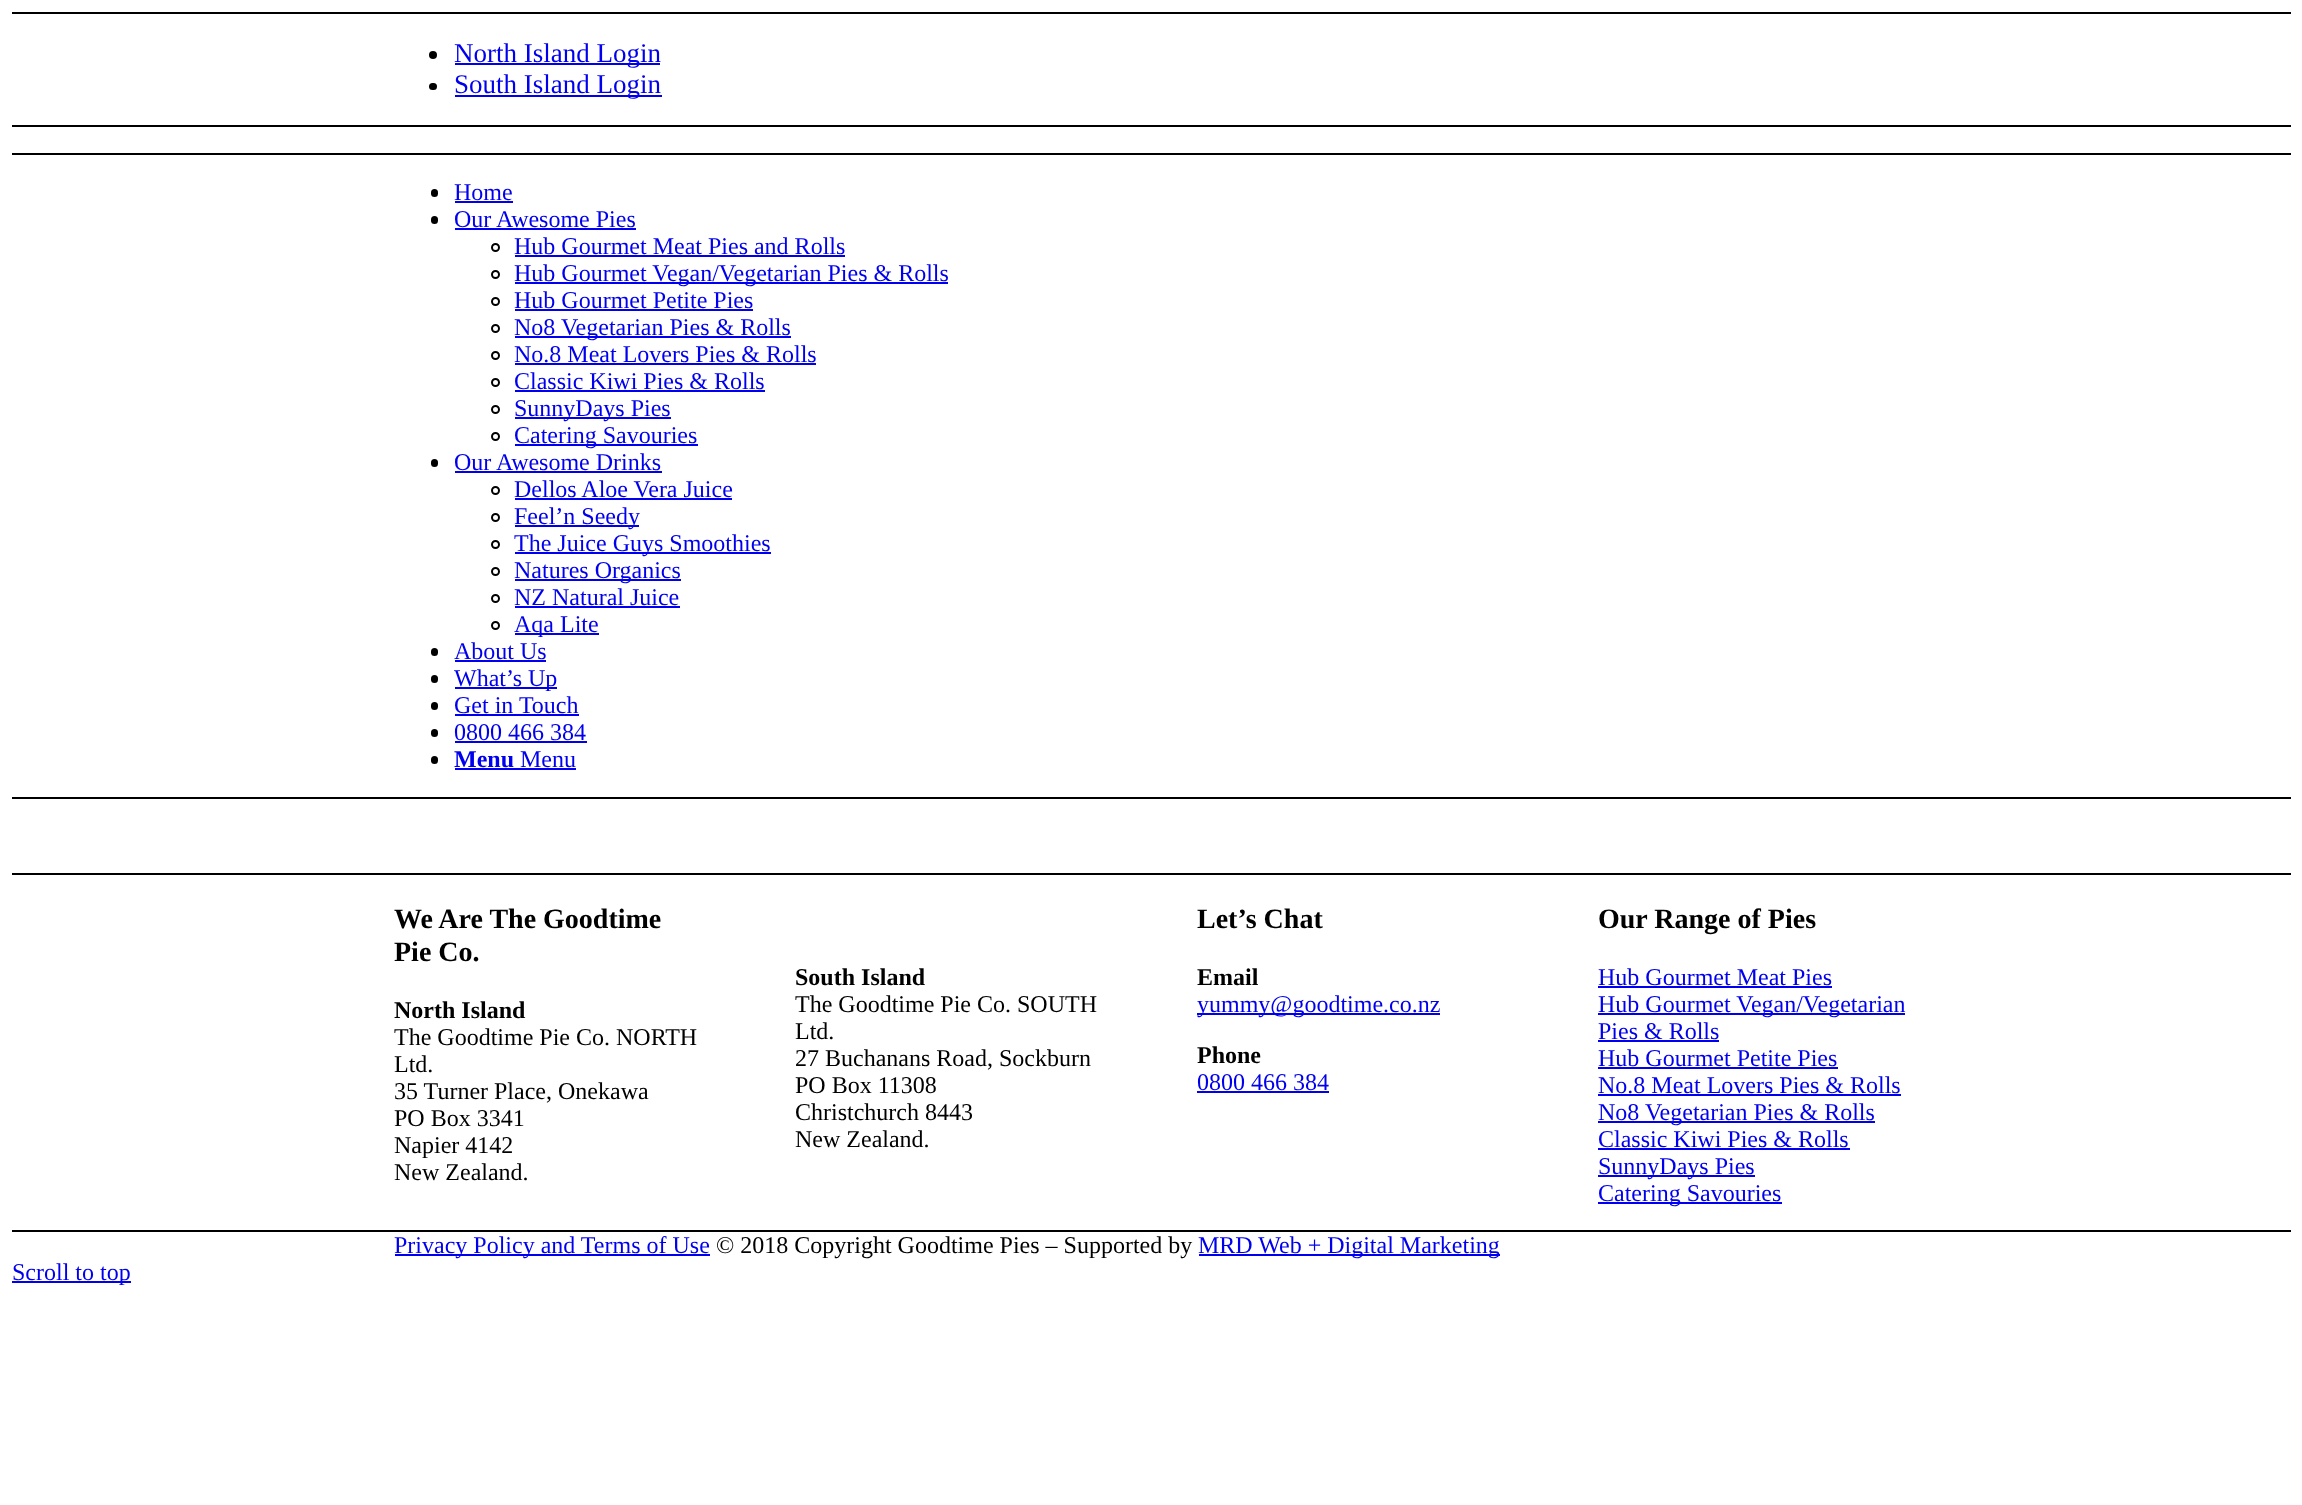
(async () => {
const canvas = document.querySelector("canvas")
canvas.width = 2302
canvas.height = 1505
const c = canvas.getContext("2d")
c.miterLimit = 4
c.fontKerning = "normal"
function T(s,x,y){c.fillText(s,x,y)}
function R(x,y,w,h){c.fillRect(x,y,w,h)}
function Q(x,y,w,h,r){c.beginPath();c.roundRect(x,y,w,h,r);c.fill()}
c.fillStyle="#fff"
R(0,0,2302,1505)
c.fillStyle="#000"
R(12,12,2279,2)
c.beginPath()
c.arc(433,55,4,0,7)
c.fill()
c.fillStyle="#00e"
R(455,63,205,2)
c.font="27px Liberation Serif"
T("North Island Login",454,62)
c.fillStyle="#000"
Q(429,83,8,7,3.5)
c.fillStyle="#00e"
R(455,95,207,2)
T("South Island Login",454,93)
c.fillStyle="#000"
R(12,125,2279,2)
R(12,153,2279,2)
Q(431,189,7,8,3.5)
c.font="24px Liberation Serif"
c.fillStyle="#00e"
T("Home",454,200)
R(455,201,58,2)
c.fillStyle="#000"
Q(431,216,7,8,3.5)
c.fillStyle="#00e"
T("Our Awesome Pies",454,227)
R(455,228,181,2)
c.beginPath()
c.arc(495.5,247.5,3.5,0,7)
c.strokeStyle="#000"
c.lineWidth=2
c.stroke()
T("Hub Gourmet Meat Pies and Rolls",514,254)
R(515,255,330,2)
c.beginPath()
c.arc(495.5,274.5,3.5,0,7)
c.stroke()
R(515,282,433,2)
T("Hub Gourmet Vegan/Vegetarian Pies & Rolls",514,281)
c.beginPath()
c.arc(495.5,301.5,3.5,0,7)
c.stroke()
T("Hub Gourmet Petite Pies",514,308)
R(515,309,238,2)
c.beginPath()
c.arc(495.5,328.5,3.5,0,7)
c.stroke()
R(515,336,276,2)
T("No8 Vegetarian Pies & Rolls",514,335)
c.beginPath()
c.arc(495.5,355.5,3.5,0,7)
c.stroke()
T("No.8 Meat Lovers Pies & Rolls",514,362)
R(515,363,301,2)
c.beginPath()
c.arc(495.5,382.5,3.5,0,7)
c.stroke()
T("Classic Kiwi Pies & Rolls",514,389)
R(515,390,250,2)
c.beginPath()
c.arc(495.5,409.5,3.5,0,7)
c.stroke()
R(515,417,156,2)
T("SunnyDays Pies",514,416)
c.beginPath()
c.arc(495.5,436.5,3.5,0,7)
c.stroke()
R(515,444,183,2)
T("Catering Savouries",514,443)
c.fillStyle="#000"
Q(431,459,7,8,3.5)
c.fillStyle="#00e"
T("Our Awesome Drinks",454,470)
R(455,471,207,2)
c.beginPath()
c.arc(495.5,490.5,3.5,0,7)
c.stroke()
T("Dellos Aloe Vera Juice",514,497)
R(515,498,217,2)
c.beginPath()
c.arc(495.5,517.5,3.5,0,7)
c.stroke()
R(515,525,124,2)
T("Feel’n Seedy",514,524)
c.beginPath()
c.arc(495.5,544.5,3.5,0,7)
c.stroke()
R(515,552,256,2)
T("The Juice Guys Smoothies",514,551)
c.beginPath()
c.arc(495.5,571.5,3.5,0,7)
c.stroke()
R(515,579,166,2)
T("Natures Organics",514,578)
c.beginPath()
c.arc(495.5,598.5,3.5,0,7)
c.stroke()
T("NZ Natural Juice",514,605)
R(515,606,165,2)
c.beginPath()
c.arc(495.5,625.5,3.5,0,7)
c.stroke()
R(515,633,84,2)
T("Aqa Lite",514,632)
c.fillStyle="#000"
Q(431,648,7,8,3.5)
c.fillStyle="#00e"
T("About Us",454,659)
R(455,660,91,2)
c.fillStyle="#000"
Q(431,675,7,8,3.5)
c.fillStyle="#00e"
R(455,687,102,2)
T("What’s Up",454,686)
c.fillStyle="#000"
Q(431,702,7,8,3.5)
c.fillStyle="#00e"
T("Get in Touch",454,713)
R(455,714,124,2)
c.fillStyle="#000"
Q(431,729,7,8,3.5)
c.fillStyle="#00e"
T("0800 466 384",454,740)
R(455,741,132,2)
c.fillStyle="#000"
Q(431,756,7,8,3.5)
c.font="bold 24px Liberation Serif"
c.fillStyle="#00e"
T("Menu",454,767)
R(455,768,121,2)
c.font="24px Liberation Serif"
T("Menu",520,767)
c.fillStyle="#000"
R(12,797,2279,2)
R(12,873,2279,2)
c.font="bold 28px Liberation Serif"
T("We Are The Goodtime",394,928)
T("Pie Co.",394,961)
c.font="bold 24px Liberation Serif"
T("North Island",394,1018)
c.font="24px Liberation Serif"
T("The Goodtime Pie Co. NORTH",394,1045)
T("Ltd.",394,1072)
T("35 Turner Place, Onekawa",394,1099)
T("PO Box 3341",394,1126)
T("Napier 4142",394,1153)
T("New Zealand.",394,1180)
c.font="bold 24px Liberation Serif"
T("South Island",795,985)
c.font="24px Liberation Serif"
T("The Goodtime Pie Co. SOUTH",795,1012)
T("Ltd.",795,1039)
T("27 Buchanans Road, Sockburn",795,1066)
T("PO Box 11308",795,1093)
T("Christchurch 8443",795,1120)
T("New Zealand.",795,1147)
c.font="bold 28px Liberation Serif"
T("Let’s Chat",1197,928)
c.font="bold 24px Liberation Serif"
T("Email",1197,985)
c.fillStyle="#00e"
R(1197,1013,243,2)
c.font="24px Liberation Serif"
T("yummy@goodtime.co.nz",1197,1012)
c.font="bold 24px Liberation Serif"
c.fillStyle="#000"
T("Phone",1197,1063)
c.font="24px Liberation Serif"
c.fillStyle="#00e"
T("0800 466 384",1197,1090)
R(1197,1091,132,2)
c.font="bold 28px Liberation Serif"
c.fillStyle="#000"
T("Our Range of Pies",1598,928)
c.font="24px Liberation Serif"
c.fillStyle="#00e"
T("Hub Gourmet Meat Pies",1598,985)
R(1598,986,234,2)
R(1598,1013,307,2)
T("Hub Gourmet Vegan/Vegetarian",1598,1012)
T("Pies & Rolls",1598,1039)
R(1598,1040,121,2)
T("Hub Gourmet Petite Pies",1598,1066)
R(1598,1067,240,2)
T("No.8 Meat Lovers Pies & Rolls",1598,1093)
R(1598,1094,303,2)
R(1598,1121,277,2)
T("No8 Vegetarian Pies & Rolls",1598,1120)
T("Classic Kiwi Pies & Rolls",1598,1147)
R(1598,1148,252,2)
R(1598,1175,157,2)
T("SunnyDays Pies",1598,1174)
R(1598,1202,184,2)
T("Catering Savouries",1598,1201)
c.fillStyle="#000"
R(12,1230,2279,2)
c.fillStyle="#00e"
R(395,1254,315,2)
T("Privacy Policy and Terms of Use",394,1253)
c.fillStyle="#000"
T("© 2018 Copyright Goodtime Pies – Supported by",716,1253)
c.fillStyle="#00e"
R(1199,1254,301,2)
T("MRD Web + Digital Marketing",1198,1253)
R(12,1281,119,2)
T("Scroll to top",12,1280)
})()
